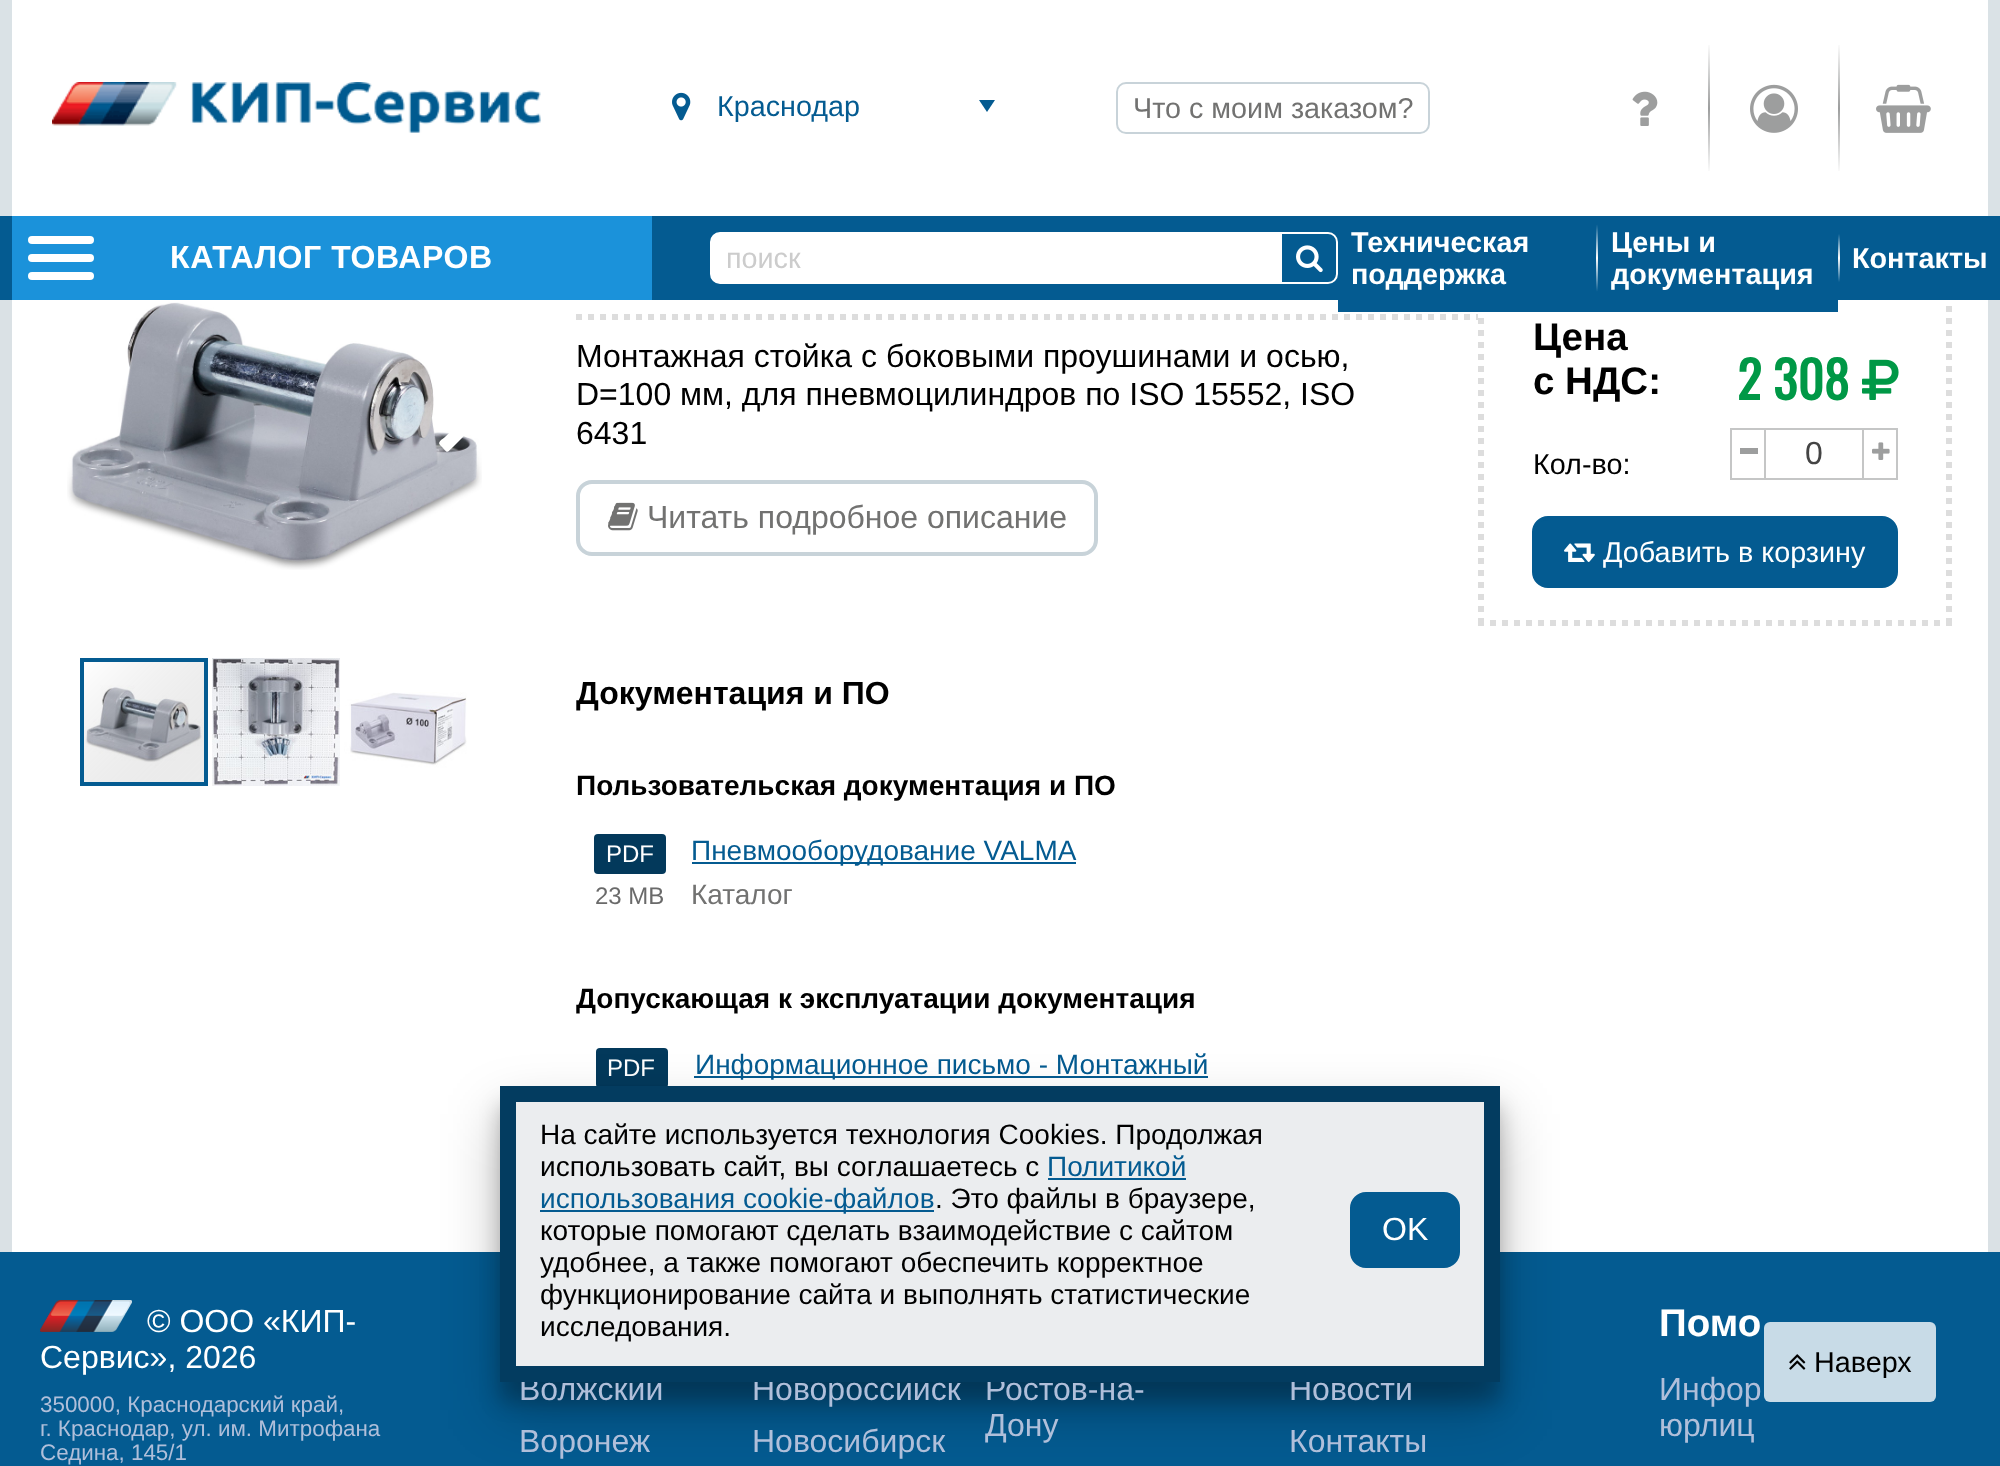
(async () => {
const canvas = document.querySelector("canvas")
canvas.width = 2000
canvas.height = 1466
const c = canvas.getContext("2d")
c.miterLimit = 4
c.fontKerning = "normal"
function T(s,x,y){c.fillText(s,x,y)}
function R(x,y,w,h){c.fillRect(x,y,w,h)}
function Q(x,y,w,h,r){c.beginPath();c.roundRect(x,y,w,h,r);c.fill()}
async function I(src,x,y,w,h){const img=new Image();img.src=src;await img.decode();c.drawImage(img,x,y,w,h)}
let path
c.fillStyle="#fff"
R(0,0,2000,1466)
path = new Path2D("M1949 198v428")
c.strokeStyle="#ddd"
c.lineWidth=6
c.setLineDash([6,6])
c.stroke(path)
path = new Path2D("M1478 623h474")
c.stroke(path)
path = new Path2D("M1481 198v428")
c.stroke(path)
R(1478,198,474,18)
c.fillStyle="#dae2e6"
R(1988,0,12,216)
R(0,0,12,216)
await I("1.png",52,82,489,51)
await I("2.png",672,92,19,29)
c.fillStyle="#045b91"
path = new Path2D("M979 100h16l-8 12z")
c.fill(path)
c.font="28.75px Liberation Sans"
T("Краснодар",717,116)
c.beginPath()
c.roundRect(1117,83,312,50,9)
c.strokeStyle="#c8d3d9"
c.lineWidth=2
c.setLineDash([])
c.stroke()
c.fillStyle="#727271"
T("Что с моим заказом?",1133,118)
await I("3.png",1632,91,26,35)
await I("4.png",1708,45,2,126)
await I("5.png",1750,84,48,49)
await I("6.png",1838,45,2,126)
await I("7.png",1876,84,55,49)
c.fillStyle="#045b91"
R(0,216,2000,84)
c.fillStyle="#fff"
c.beginPath()
c.roundRect(711,233,568,50,[9,0,0,9])
c.fill()
c.strokeStyle="#fff"
c.stroke()
c.fillStyle="#ccc"
T("поиск",726,268)
c.beginPath()
c.roundRect(1281,233,56,50,[0,9,9,0])
c.stroke()
await I("8.png",1296,245,27,28)
c.fillStyle="#045b91"
R(1338,300,258,12)
c.font="bold 28.75px Liberation Sans"
c.fillStyle="#fff"
T("Техническая",1351,252)
T("поддержка",1351,284)
await I("9.png",1596,216,2,96)
c.fillStyle="#045b91"
R(1598,300,240,12)
c.fillStyle="#fff"
T("Цены и",1611,252)
T("документация",1611,284)
await I("10.png",1838,234,2,48)
T("Контакты",1852,268)
c.fillStyle="#dae1e5"
R(1988,300,12,952)
R(0,300,12,952)
c.fillStyle="#1b92da"
R(12,216,640,84)
c.fillStyle="#fff"
Q(28,236,66,8,4)
Q(28,254,66,8,4)
c.letterSpacing="0.6px"
c.font="bold 32px Liberation Sans"
T("КАТАЛОГ ТОВАРОВ",170,268)
Q(28,272,66,8,4)
await I("11.png",67,302,415,268)
c.fillStyle="#ffffff1a"
path = new Path2D("M94 404l-19 19l16 16c4 4 5 4 0 8c-6 6-4 6-11 0l-22-23v-2l27-27c2-2 4 1 5 2l4 4c1 1 1 2 0 3z")
c.fill(path)
c.fillStyle="#fff"
path = new Path2D("M476 424l-23 23c-7 7-5 6-12-1c-5-4 1-6 5-10l13-13l-20-20c0-2 2-4 3-5c6-6 5-5 11 1l18 18c1 0 6 4 5 7z")
c.fill(path)
await I("14.png",84,662,120,120)
c.strokeStyle="#045b91"
c.lineWidth=4
c.strokeRect(82,660,124,124)
await I("12.png",212,658,128,128)
await I("13.png",344,658,128,128)
path = new Path2D("M576 317h902")
c.strokeStyle="#ddd"
c.lineWidth=6
c.setLineDash([6,6])
c.stroke(path)
c.letterSpacing="0px"
c.font="32px Liberation Sans"
c.fillStyle="#000"
T("Монтажная стойка с боковыми проушинами и осью,",576,367)
T("D=100 мм, для пневмоцилиндров по ISO 15552, ISO",576,405)
T("6431",576,444)
c.beginPath()
c.roundRect(578,482,518,72,14)
c.strokeStyle="#c8d3d9"
c.lineWidth=4
c.setLineDash([])
c.stroke()
await I("15.png",608,502,30,29)
c.fillStyle="#727271"
T("Читать подробное описание",647,528)
c.font="bold 38.5px Liberation Sans"
c.fillStyle="#000"
T("Цена",1533,350)
T("с НДС:",1533,394)
c.font="bold 51px Oswald"
c.fillStyle="#009846"
T("2 308",1737,400)
await I("16.png",1862,359,37,41)
c.font="28.75px Liberation Sans"
c.fillStyle="#000"
T("Кол-во:",1533,474)
c.strokeStyle="#c5c6c6"
c.lineWidth=2
c.strokeRect(1731,429,34,50)
c.fillStyle="#9d9e9e"
R(1740,448,18,6)
c.fillStyle="#c5c6c6"
R(1766,428,96,2)
R(1766,478,96,2)
c.font="32px Liberation Sans"
c.fillStyle="#444"
T("0",1805,464)
c.strokeRect(1863,429,34,50)
await I("17.png",1872,442,18,18)
c.fillStyle="#045b91"
c.beginPath()
c.roundRect(1534,518,362,68,14)
c.fill()
c.strokeStyle="#045b91"
c.lineWidth=4
c.stroke()
await I("18.png",1564,543,31,19)
c.font="28.75px Liberation Sans"
c.fillStyle="#fff"
T("Добавить в корзину",1603,562)
c.font="bold 32px Liberation Sans"
c.fillStyle="#000"
T("Документация и ПО",576,704)
c.font="bold 28px Liberation Sans"
T("Пользовательская документация и ПО",576,795)
c.fillStyle="#03395b"
Q(594,834,72,40,4)
c.font="24px Liberation Sans"
c.fillStyle="#fff"
T("PDF",606,862)
c.fillStyle="#6a6a6a"
T("23 MB",595,904)
c.fillStyle="#045b91"
R(692,862,384,2)
c.font="28px Liberation Sans"
T("Пневмооборудование VALMA",691,860)
c.fillStyle="#727271"
T("Каталог",691,904)
c.font="bold 28px Liberation Sans"
c.fillStyle="#000"
T("Допускающая к эксплуатации документация",576,1008)
c.fillStyle="#03395b"
Q(596,1048,72,40,4)
c.font="24px Liberation Sans"
c.fillStyle="#fff"
T("PDF",607,1076)
c.fillStyle="#045b91"
R(694,1076,514,2)
c.font="28px Liberation Sans"
T("Информационное письмо - Монтажный",695,1074)
R(0,1252,2000,214)
c.fillStyle="#00000038"
c.filter="blur(10px)"
c.beginPath()
c.rect(500,1106,1000,296)
c.fill()
c.filter="none"
c.fillStyle="#00000040"
c.filter="blur(28px)"
c.beginPath()
c.rect(500,1114,1000,296)
c.fill()
c.filter="none"
c.font="32px Liberation Sans"
c.fillStyle="#b0bfda"
T("Волжский",519,1400)
T("Новороссийск",752,1400)
T("Ростов-на-",985,1400)
T("Новости",1289,1400)
c.fillStyle="#ebedef"
c.beginPath()
c.rect(508,1094,984,280)
c.fill()
c.strokeStyle="#033c60"
c.lineWidth=16
c.stroke()
c.font="28px Liberation Sans"
c.fillStyle="#000"
T("На сайте используется технология Cookies. Продолжая",540,1144)
T("использовать сайт, вы соглашаетесь с",540,1176)
c.fillStyle="#045b91"
T("Политикой",1047,1176)
R(1048,1178,138,2)
R(540,1210,394,2)
T("использования cookie-файлов",540,1208)
c.fillStyle="#000"
T(". Это файлы в браузере,",935,1208)
T("которые помогают сделать взаимодействие с сайтом",540,1240)
T("удобнее, а также помогают обеспечить корректное",540,1272)
T("функционирование сайта и выполнять статистические",540,1304)
T("исследования.",540,1336)
c.fillStyle="#045b91"
c.beginPath()
c.roundRect(1352,1194,106,72,14)
c.fill()
c.strokeStyle="#045b91"
c.lineWidth=4
c.stroke()
c.font="32px Liberation Sans"
c.fillStyle="#fff"
T("OK",1382,1240)
await I("19.png",40,1300,92,32)
T("© ООО «КИП-",147,1332)
T("Сервис», 2026",40,1368)
c.font="22.4px Liberation Sans"
c.fillStyle="#b0bfda"
T("350000, Краснодарский край,",40,1412)
T("г. Краснодар, ул. им. Митрофана",40,1436)
T("Седина, 145/1",40,1460)
c.font="32px Liberation Sans"
T("Дону",985,1436)
T("Воронеж",519,1452)
T("Новосибирск",752,1452)
T("Контакты",1289,1452)
c.font="bold 38.5px Liberation Sans"
c.fillStyle="#fff"
T("Помо",1659,1336)
c.font="32px Liberation Sans"
c.fillStyle="#b0bfda"
T("Инфор",1659,1400)
T("юрлиц",1659,1436)
c.fillStyle="#c8dbe7"
Q(1764,1322,172,80,6)
await I("20.png",1789,1354,17,16)
c.font="28.75px Liberation Sans"
c.fillStyle="#000"
T("Наверх",1814,1372)
})()
